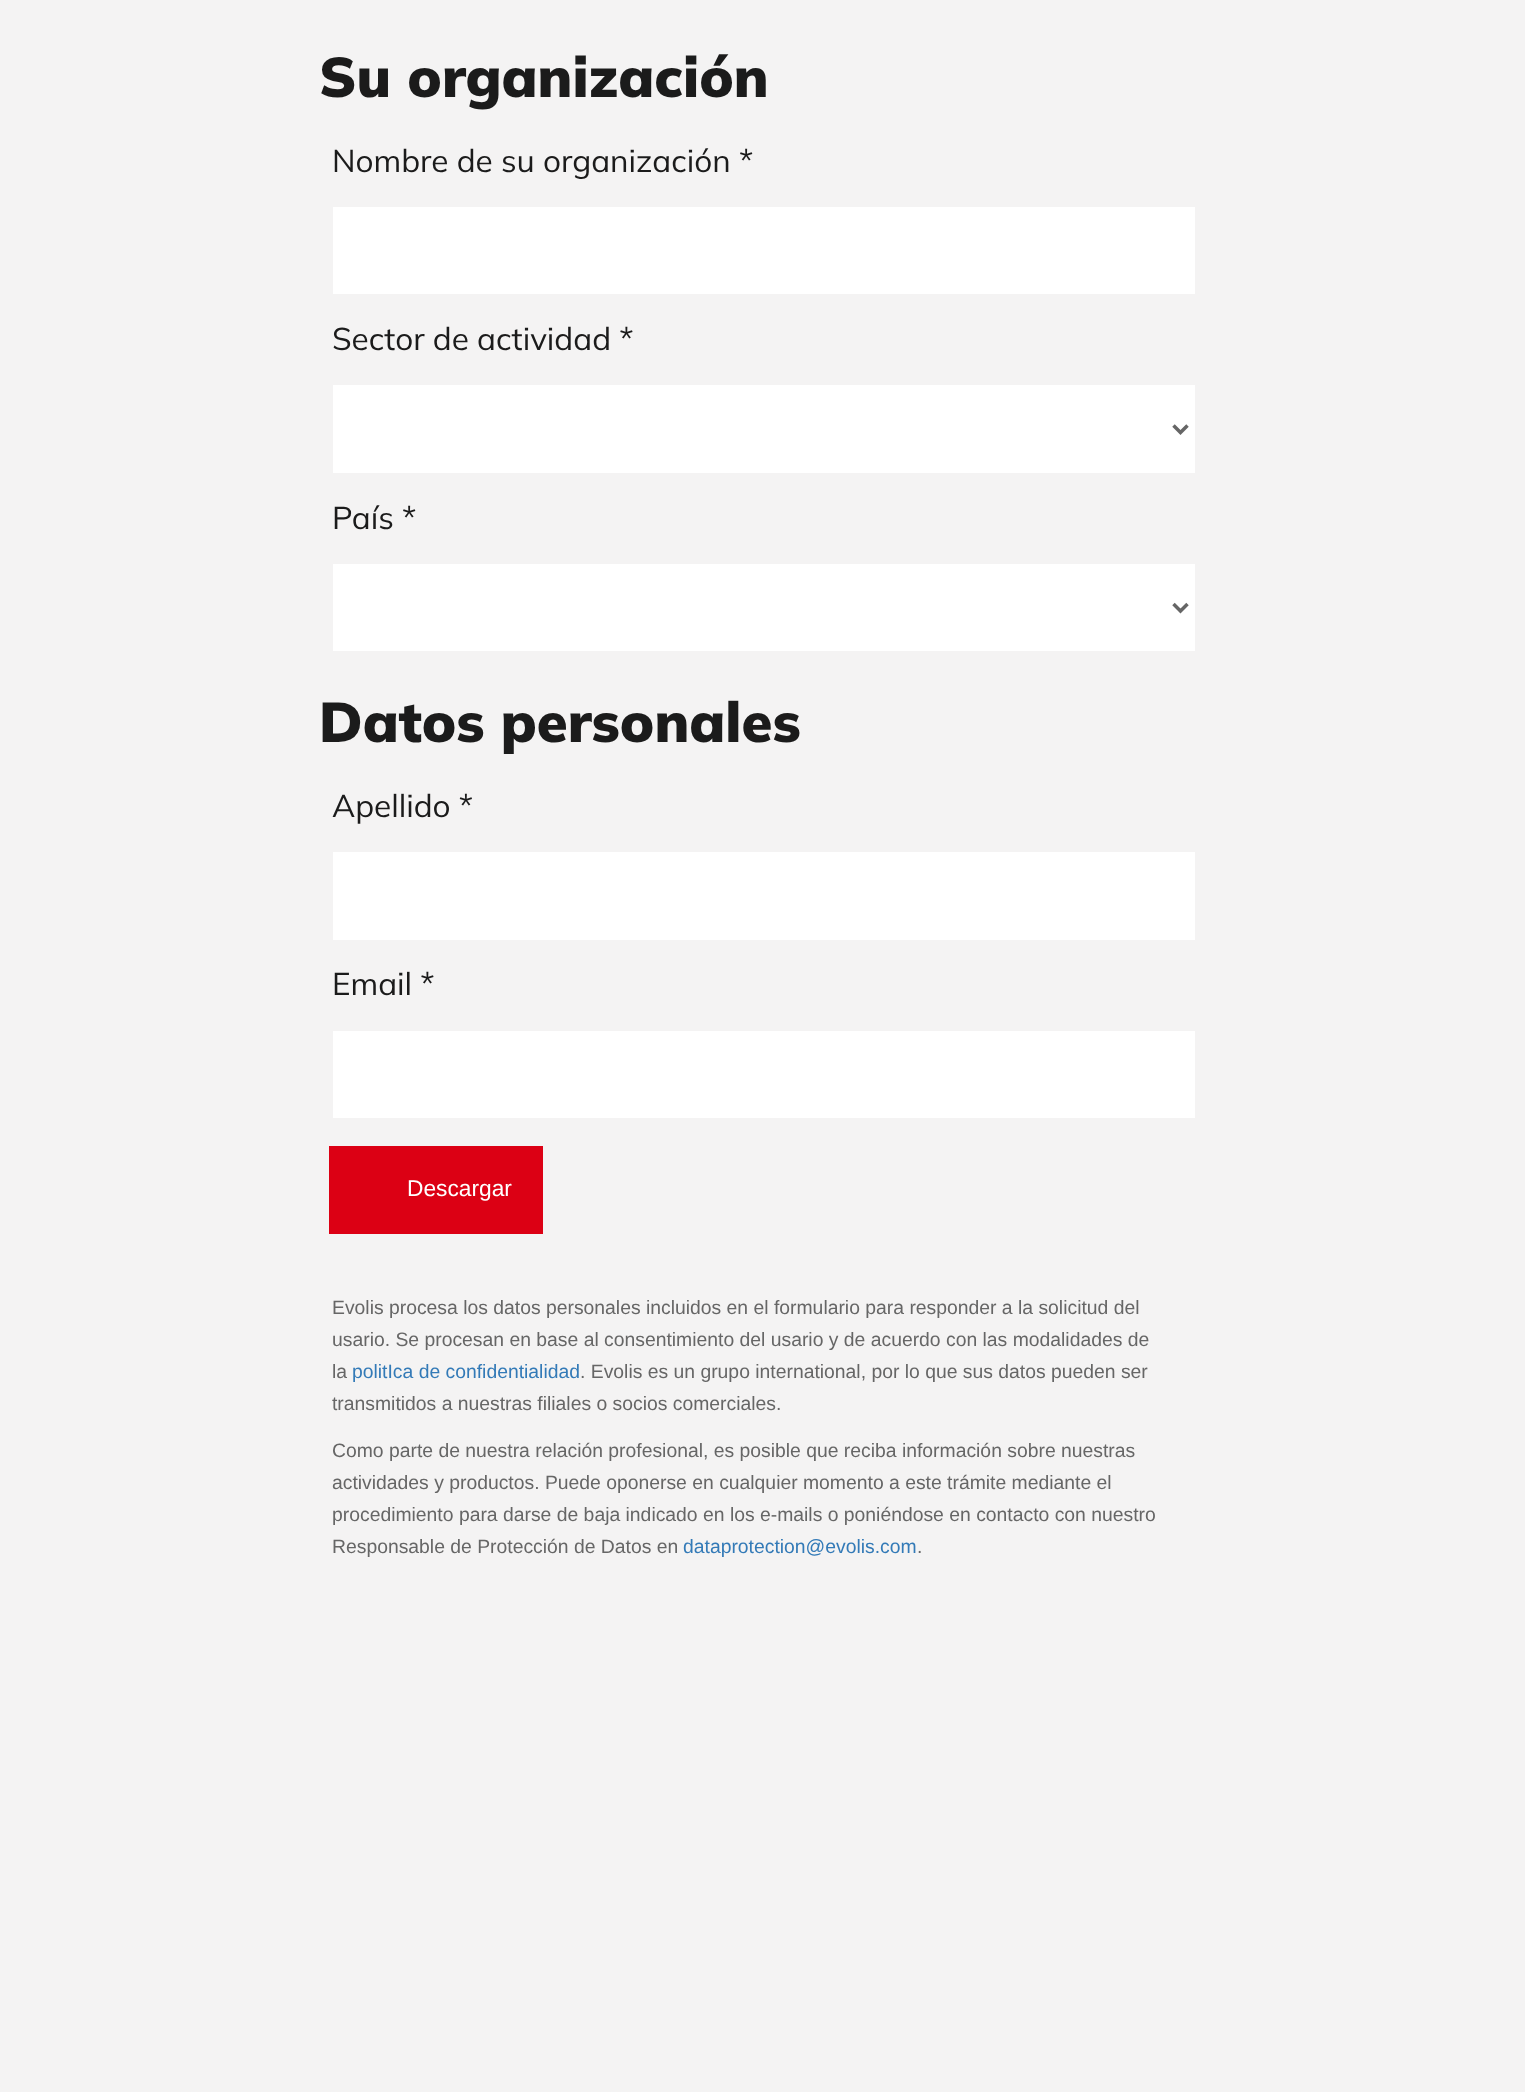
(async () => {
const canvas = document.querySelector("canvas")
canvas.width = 1525
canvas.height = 2092
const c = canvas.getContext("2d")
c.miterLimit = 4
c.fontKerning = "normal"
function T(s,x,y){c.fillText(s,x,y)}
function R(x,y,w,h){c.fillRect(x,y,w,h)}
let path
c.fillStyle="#f4f3f3"
R(0,0,1525,2092)
c.font="900 56px Mulish"
c.fillStyle="#1b1b1b"
T("Su organización",319,97)
c.font="31.5px Mulish"
T("Nombre de su organización *",332,172)
c.fillStyle="#fff"
R(333,207,862,87)
c.fillStyle="#1b1b1b"
T("Sector de actividad *",332,350)
c.fillStyle="#fff"
R(333,385,862,88)
path = new Path2D("M1173.5 425.5l7 7l7-7")
c.strokeStyle="#666"
c.lineWidth=3.5
c.stroke(path)
c.fillStyle="#1b1b1b"
T("País *",332,529)
c.fillStyle="#fff"
R(333,564,862,87)
path = new Path2D("M1173.5 604l7 7l7-7")
c.stroke(path)
c.font="900 56px Mulish"
c.fillStyle="#1b1b1b"
T("Datos personales",319,742)
c.font="31.5px Mulish"
T("Apellido *",332,817)
c.fillStyle="#fff"
R(333,852,862,88)
c.fillStyle="#1b1b1b"
T("Email *",332,995)
c.fillStyle="#fff"
R(333,1031,862,87)
c.fillStyle="#dc0014"
R(329,1146,214,88)
c.font="22.75px Liberation Sans"
c.fillStyle="#fff"
T("Descargar",407,1196)
c.font="19.35px Liberation Sans"
c.fillStyle="#666"
T("Evolis procesa los datos personales incluidos en el formulario para responder a la solicitud del",332,1314)
T("usario. Se procesan en base al consentimiento del usario y de acuerdo con las modalidades de",332,1346)
T("la",332,1378)
c.fillStyle="#337ab7"
T("politIca de confidentialidad",352,1378)
c.fillStyle="#666"
T(". Evolis es un grupo international, por lo que sus datos pueden ser",580,1378)
T("transmitidos a nuestras filiales o socios comerciales.",332,1410)
T("Como parte de nuestra relación profesional, es posible que reciba información sobre nuestras",332,1457)
T("actividades y productos. Puede oponerse en cualquier momento a este trámite mediante el",332,1489)
T("procedimiento para darse de baja indicado en los e-mails o poniéndose en contacto con nuestro",332,1521)
T("Responsable de Protección de Datos en",332,1553)
c.fillStyle="#337ab7"
T("dataprotection@evolis.com",683,1553)
c.fillStyle="#666"
T(".",917,1553)
})()
